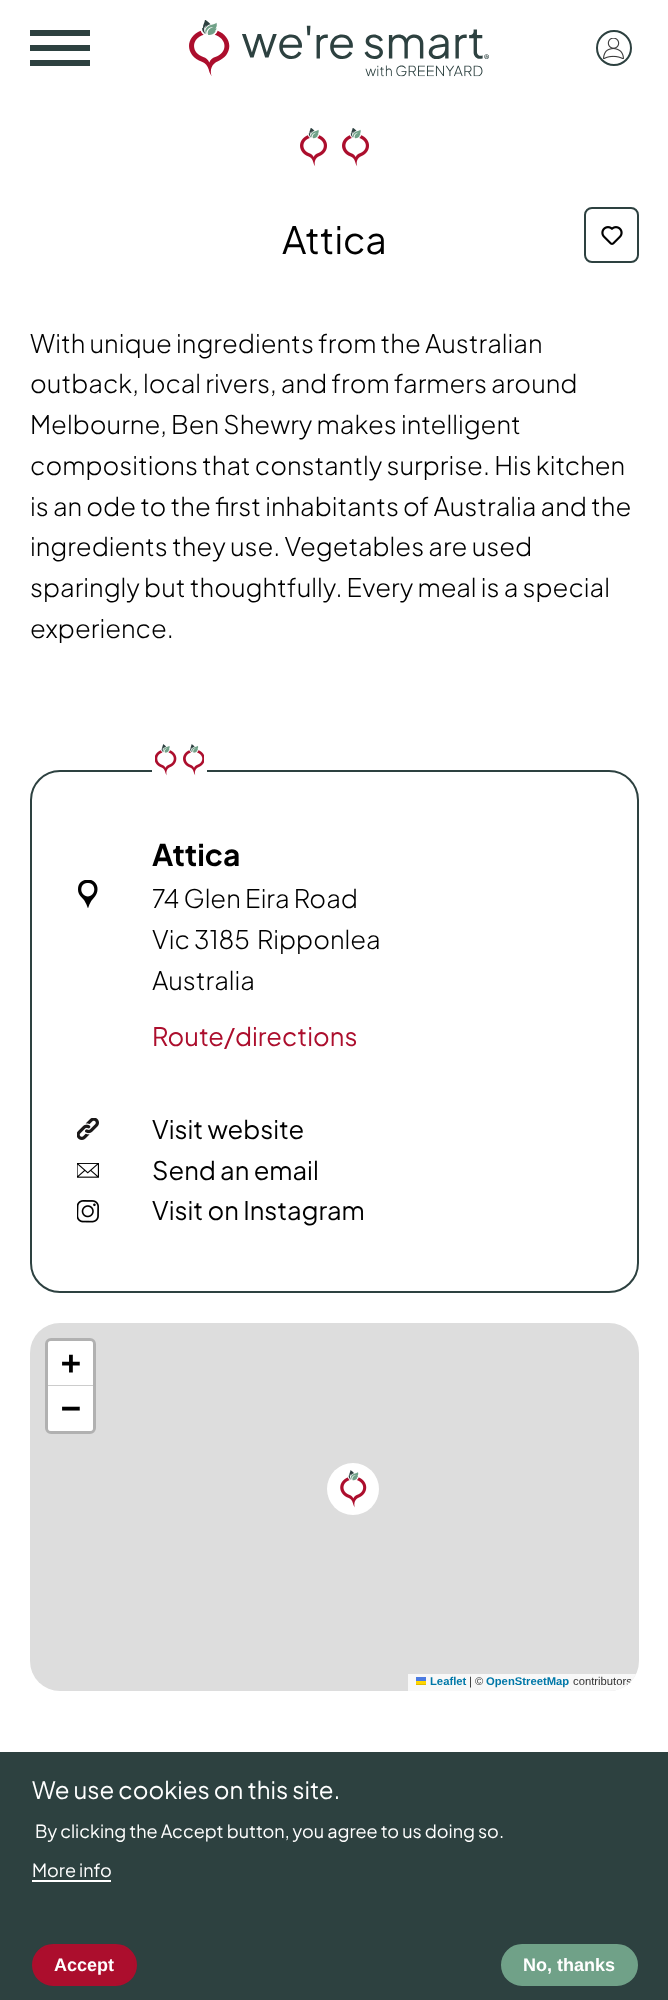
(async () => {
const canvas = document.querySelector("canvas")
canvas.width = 668
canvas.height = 2000
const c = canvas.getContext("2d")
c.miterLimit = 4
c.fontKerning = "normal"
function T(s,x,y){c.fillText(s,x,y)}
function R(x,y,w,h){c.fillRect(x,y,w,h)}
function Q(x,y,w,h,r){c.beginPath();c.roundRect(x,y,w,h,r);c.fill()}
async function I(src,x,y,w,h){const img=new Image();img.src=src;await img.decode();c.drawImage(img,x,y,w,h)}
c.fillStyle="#fff"
R(0,0,668,2000)
c.fillStyle="#2d4140"
R(30,45,60,6)
R(30,30,60,6)
R(30,60,60,6)
await I("1.png",189,20,300,57)
await I("2.png",603,38,21,21)
c.beginPath()
c.arc(614,48,17,0,7)
c.strokeStyle="#2d4140"
c.lineWidth=2
c.stroke()
await I("3.png",300,128,27,39)
await I("3.png",342,128,27,39)
c.font="37.5px Plus Jakarta Sans"
c.fillStyle="#000"
T("Attica",282,254)
c.beginPath()
c.roundRect(585,208,53,54,7)
c.stroke()
await I("4.png",601,226,22,19)
c.font="300 25.5px Plus Jakarta Sans"
T("With unique ingredients from the Australian",30,353)
T("outback, local rivers, and from farmers around",30,393)
T("Melbourne, Ben Shewry makes intelligent",30,434)
T("compositions that constantly surprise. His kitchen",30,475)
T("is an ode to the first inhabitants of Australia and the",30,516)
T("ingredients they use. Vegetables are used",30,556)
T("sparingly but thoughtfully. Every meal is a special",30,597)
T("experience.",30,638)
c.beginPath()
c.roundRect(31,771,607,521,29)
c.stroke()
c.fillStyle="#fff"
R(152,770,55,2)
await I("5.png",155,744,22,32)
await I("6.png",183,744,21,32)
c.font="bold 30px Plus Jakarta Sans"
c.fillStyle="#000"
T("Attica",152,866)
await I("7.png",78,880,20,28)
c.font="300 25.5px Plus Jakarta Sans"
T("74 Glen Eira Road",152,908)
T("Vic 3185",152,949)
T("Ripponlea",257,949)
T("Australia",152,990)
c.font="25.5px Plus Jakarta Sans"
c.fillStyle="#ac0e2d"
T("Route/directions",152,1046)
await I("8.png",77,1118,22,22)
c.fillStyle="#000"
T("Visit website",152,1139)
await I("9.png",77,1163,22,15)
T("Send an email",152,1180)
await I("10.png",77,1200,22,23)
T("Visit on Instagram",152,1220)
c.fillStyle="#ddd"
Q(30,1323,609,368,30)
c.beginPath()
c.roundRect(46.5,1339.5,48,93,4.5)
c.strokeStyle="#b1b1b1"
c.lineWidth=3
c.stroke()
c.fillStyle="#fff"
c.beginPath()
c.roundRect(48,1341,45,45,[3,3,0,0])
c.fill()
c.fillStyle="#ccc"
R(48,1385,45,1)
c.font="bold 33px DejaVu Sans Mono"
c.fillStyle="#000"
T("+",61,1374)
c.fillStyle="#fff"
c.beginPath()
c.roundRect(48,1386,45,45,[0,0,3,3])
c.fill()
c.fillStyle="#000"
T("−",61,1419)
c.save()
c.beginPath()
c.roundRect(30,1323,609,368,30)
c.clip()
c.fillStyle="#ffffffcc"
R(408,1674,228,17)
c.restore()
c.font="bold 11.25px Liberation Sans"
c.fillStyle="#0078a8"
T("Leaflet",430,1685)
c.fillStyle="#4c7be1"
R(416,1677,10,4)
c.fillStyle="#ffd500"
R(416,1681,10,3)
c.fillStyle="#e0bc00"
R(416,1684,10,1)
c.font="11.25px Liberation Sans"
c.fillStyle="#333"
T("| ©",469,1685)
c.font="bold 11.25px Liberation Sans"
c.fillStyle="#0078a8"
T("OpenStreetMap",486,1685)
c.save()
c.beginPath()
c.roundRect(30,1323,609,368,30)
c.clip()
c.font="11.25px Liberation Sans"
c.fillStyle="#333"
T("contributors",573,1685)
c.restore()
c.fillStyle="#fff"
c.beginPath()
c.arc(353,1489,26,0,7)
c.fill()
await I("11.png",340,1470,27,38)
c.fillStyle="#2d4140"
R(0,1752,668,248)
c.font="24px Plus Jakarta Sans"
c.fillStyle="#fff"
T("We use cookies on this site.",32,1799)
c.font="18px Plus Jakarta Sans"
T("By clicking the Accept button, you agree to us doing so.",35,1838)
T("More info",32,1877)
R(32,1880,79,2)
c.fillStyle="#ac0e2d"
c.beginPath()
c.roundRect(33,1945,103,40,20)
c.fill()
c.strokeStyle="#ac0e2d"
c.lineWidth=2
c.stroke()
c.font="bold 18px Liberation Sans"
c.fillStyle="#fff"
T("Accept",54,1971)
c.fillStyle="#70a188"
c.beginPath()
c.roundRect(502,1945,135,40,20)
c.fill()
c.strokeStyle="#70a188"
c.stroke()
c.fillStyle="#fff"
T("No, thanks",523,1971)
})()
